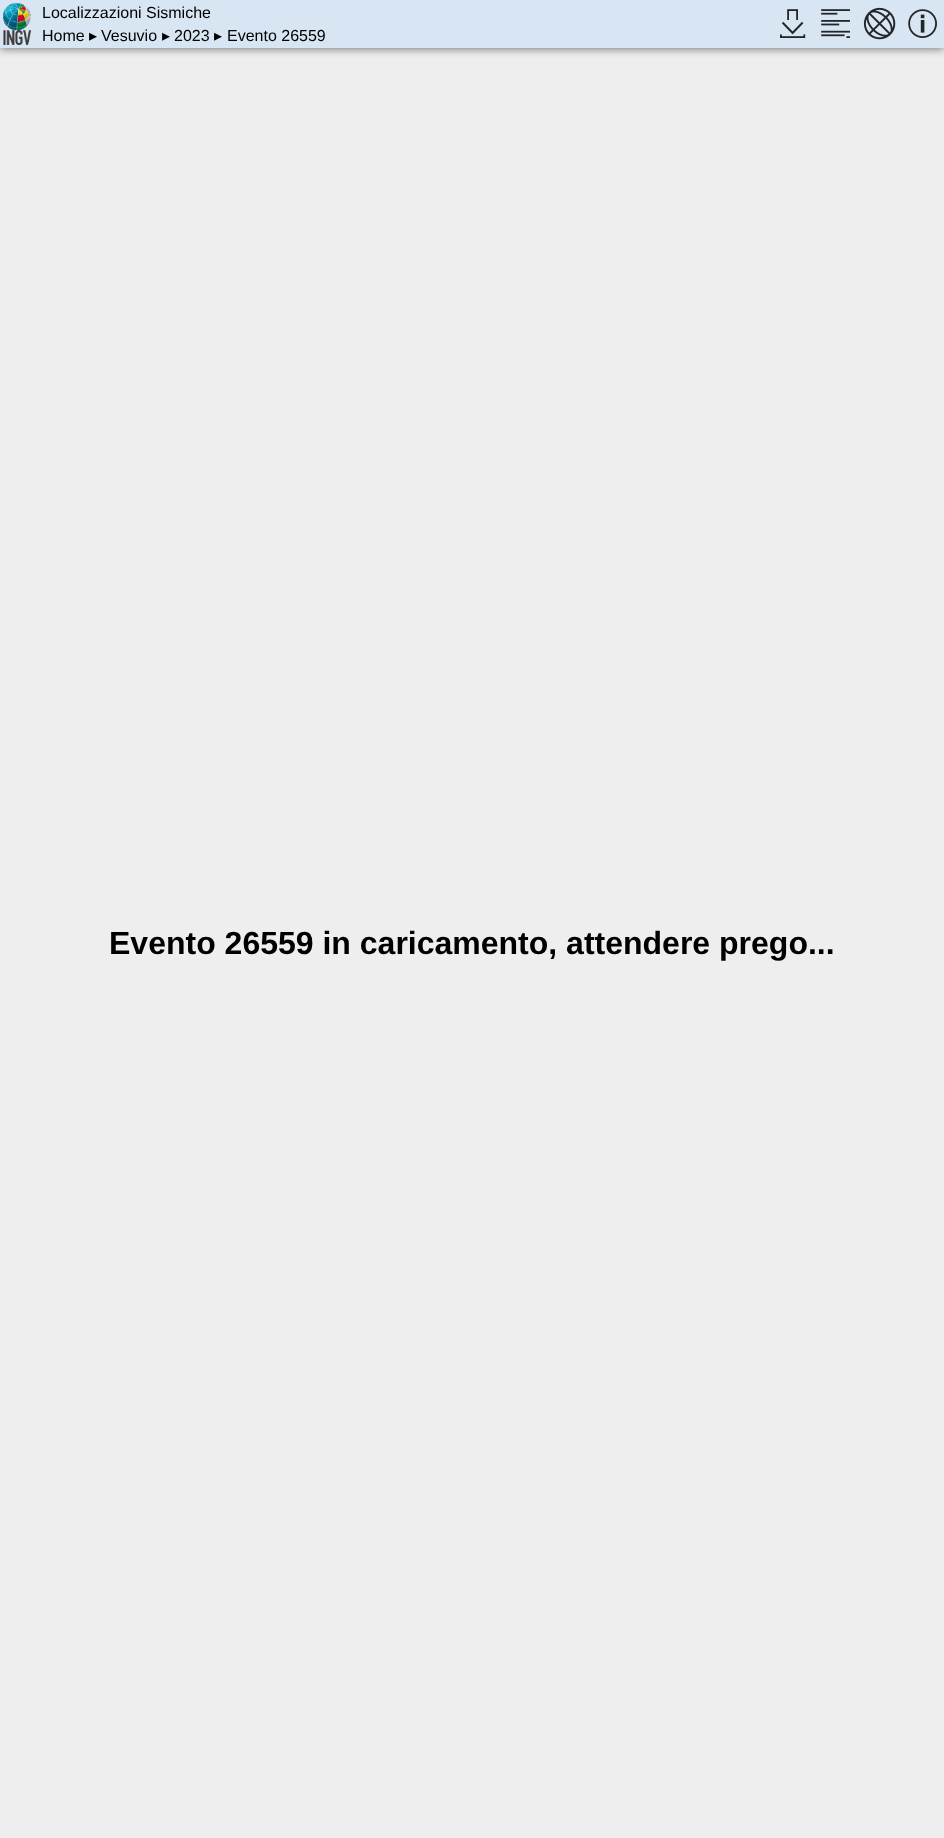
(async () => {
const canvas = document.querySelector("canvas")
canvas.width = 944
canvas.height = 1838
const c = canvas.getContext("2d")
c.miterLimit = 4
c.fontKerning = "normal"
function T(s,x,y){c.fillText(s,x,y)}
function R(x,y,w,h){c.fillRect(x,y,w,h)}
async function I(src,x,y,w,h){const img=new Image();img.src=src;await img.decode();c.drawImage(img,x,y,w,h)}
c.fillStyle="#eee"
R(0,0,944,1838)
c.fillStyle="#00000080"
c.filter="blur(4px)"
c.beginPath()
c.rect(0,1,944,48)
c.fill()
c.filter="none"
c.fillStyle="#d8e6f3"
R(0,0,944,48)
await I("1.png",3,3,28,42)
c.font="16px Liberation Sans"
c.fillStyle="#000"
T("Localizzazioni Sismiche",42,18)
T("Home",42,41)
c.font="16px DejaVu Sans"
T("▸",89,41)
c.font="16px Liberation Sans"
T("Vesuvio",101,41)
c.font="16px DejaVu Sans"
T("▸",162,41)
c.font="16px Liberation Sans"
T("2023",174,41)
c.font="16px DejaVu Sans"
T("▸",214,41)
c.font="16px Liberation Sans"
T("Evento 26559",227,41)
await I("2.png",780,9,26,29)
await I("3.png",821,9,29,29)
await I("4.png",863,7,33,33)
await I("5.png",908,9,29,29)
c.font="bold 32px Liberation Sans"
T("Evento 26559 in caricamento, attendere prego...",109,954)
})()
